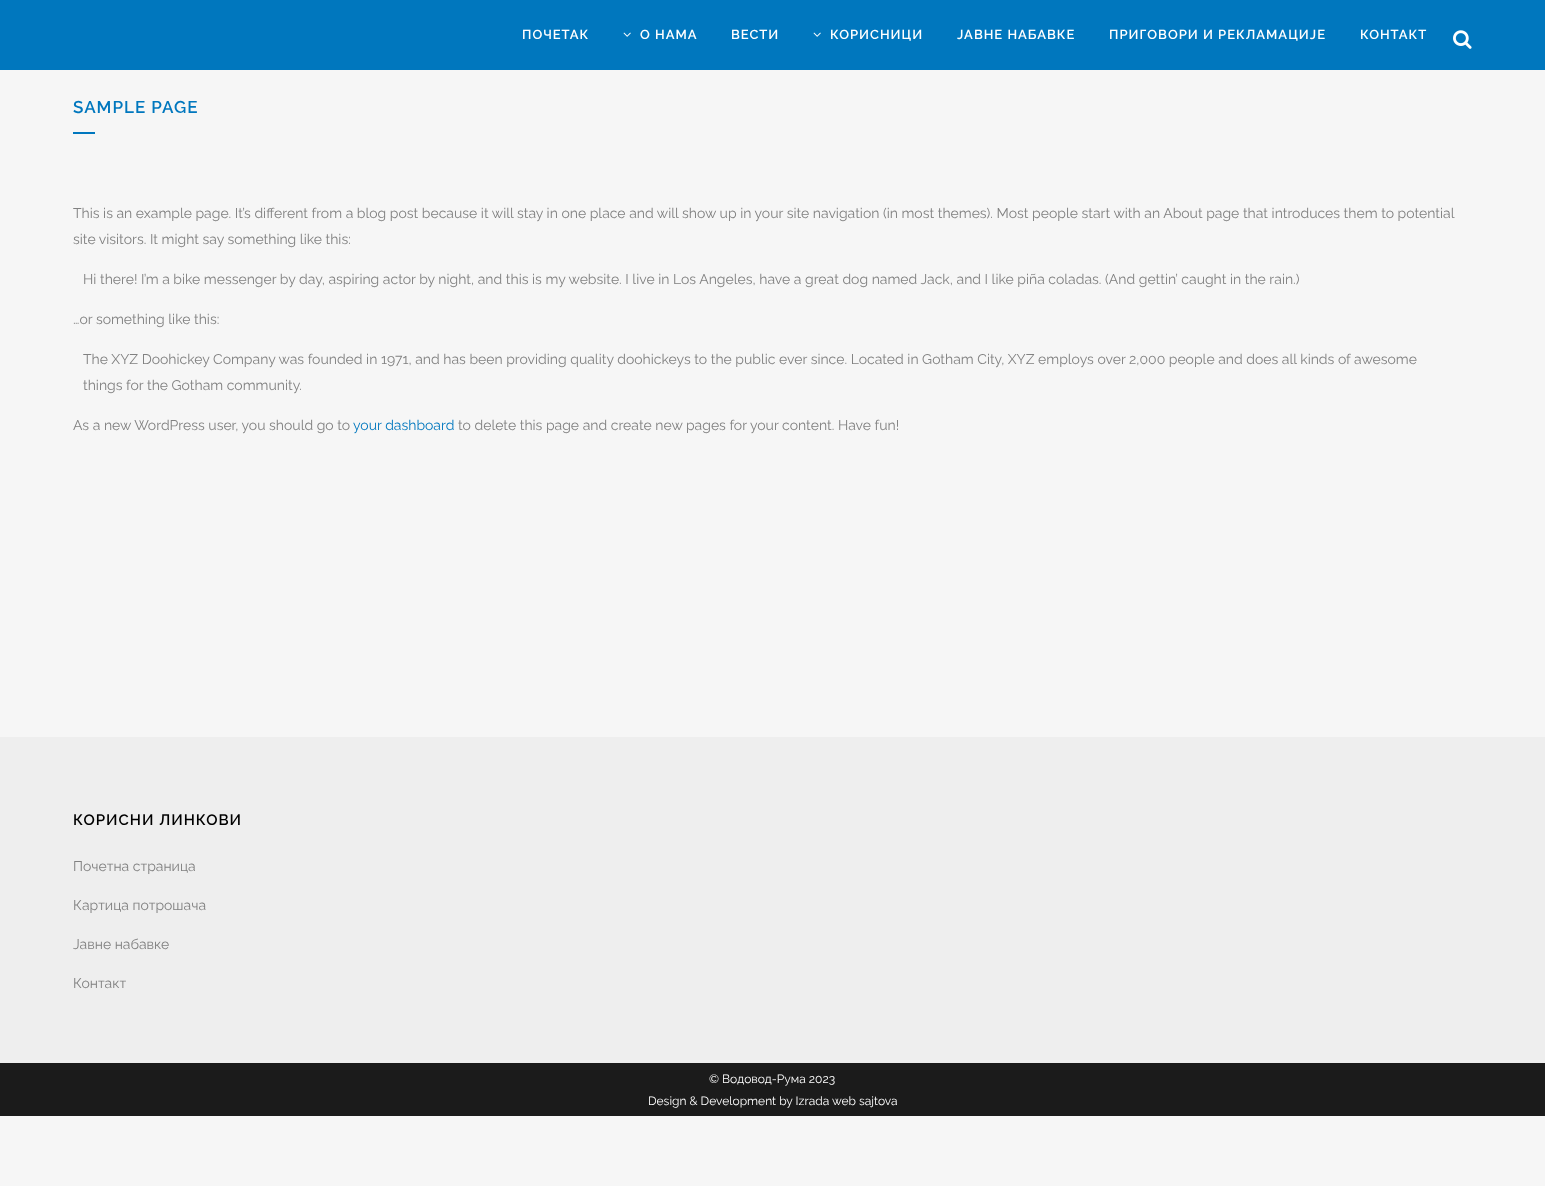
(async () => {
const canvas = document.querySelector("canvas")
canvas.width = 1545
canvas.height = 1186
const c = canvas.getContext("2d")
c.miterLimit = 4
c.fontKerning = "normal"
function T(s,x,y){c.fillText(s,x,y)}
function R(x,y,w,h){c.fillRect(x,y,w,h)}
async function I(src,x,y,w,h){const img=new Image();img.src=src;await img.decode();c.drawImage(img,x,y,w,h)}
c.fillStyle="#f6f6f6"
R(0,0,1545,1186)
c.fillStyle="#0077be"
R(0,0,1545,70)
c.letterSpacing="1px"
c.font="600 13px Raleway"
c.fillStyle="#fff"
T("ПОЧЕТАК",522,39)
await I("1.png",623,32,8,5)
T("О НАМА",640,39)
T("ВЕСТИ",731,39)
await I("1.png",813,32,8,5)
T("КОРИСНИЦИ",830,39)
T("ЈАВНЕ НАБАВКЕ",957,39)
T("ПРИГОВОРИ И РЕКЛАМАЦИЈЕ",1109,39)
T("КОНТАКТ",1360,39)
await I("2.png",1453,30,19,19)
c.font="600 17px Raleway"
c.fillStyle="#0077be"
T("SAMPLE PAGE",73,113)
R(73,132,22,2)
c.letterSpacing="0px"
c.font="14px Raleway"
c.fillStyle="#818181"
T("This is an example page. It’s different from a blog post because it will stay in one place and will show up in your site navigation (in most themes). Most people start with an About page that introduces them to potential",73,218)
T("site visitors. It might say something like this:",73,244)
T("Hi there! I’m a bike messenger by day, aspiring actor by night, and this is my website. I live in Los Angeles, have a great dog named Jack, and I like piña coladas. (And gettin’ caught in the rain.)",83,284)
T("…or something like this:",73,324)
T("The XYZ Doohickey Company was founded in 1971, and has been providing quality doohickeys to the public ever since. Located in Gotham City, XYZ employs over 2,000 people and does all kinds of awesome",83,364)
T("things for the Gotham community.",83,390)
T("As a new WordPress user, you should go to",73,430)
c.fillStyle="#0077be"
T("your dashboard",353,430)
c.fillStyle="#818181"
T("to delete this page and create new pages for your content. Have fun!",458,430)
c.fillStyle="#eee"
R(0,737,1545,326)
c.letterSpacing="1px"
c.font="600 15px Raleway"
c.fillStyle="#000"
T("КОРИСНИ ЛИНКОВИ",73,825)
c.letterSpacing="0px"
c.font="14px Raleway"
c.fillStyle="#818181"
T("Почетна страница",73,871)
T("Картица потрошача",73,910)
T("Јавне набавке",73,949)
T("Контакт",73,988)
c.fillStyle="#1b1b1b"
R(0,1063,1545,53)
c.font="12px Raleway"
c.fillStyle="#fff"
T("© Водовод-Рума 2023",709,1083)
T("Design & Development by Izrada web sajtova",648,1105)
})()
